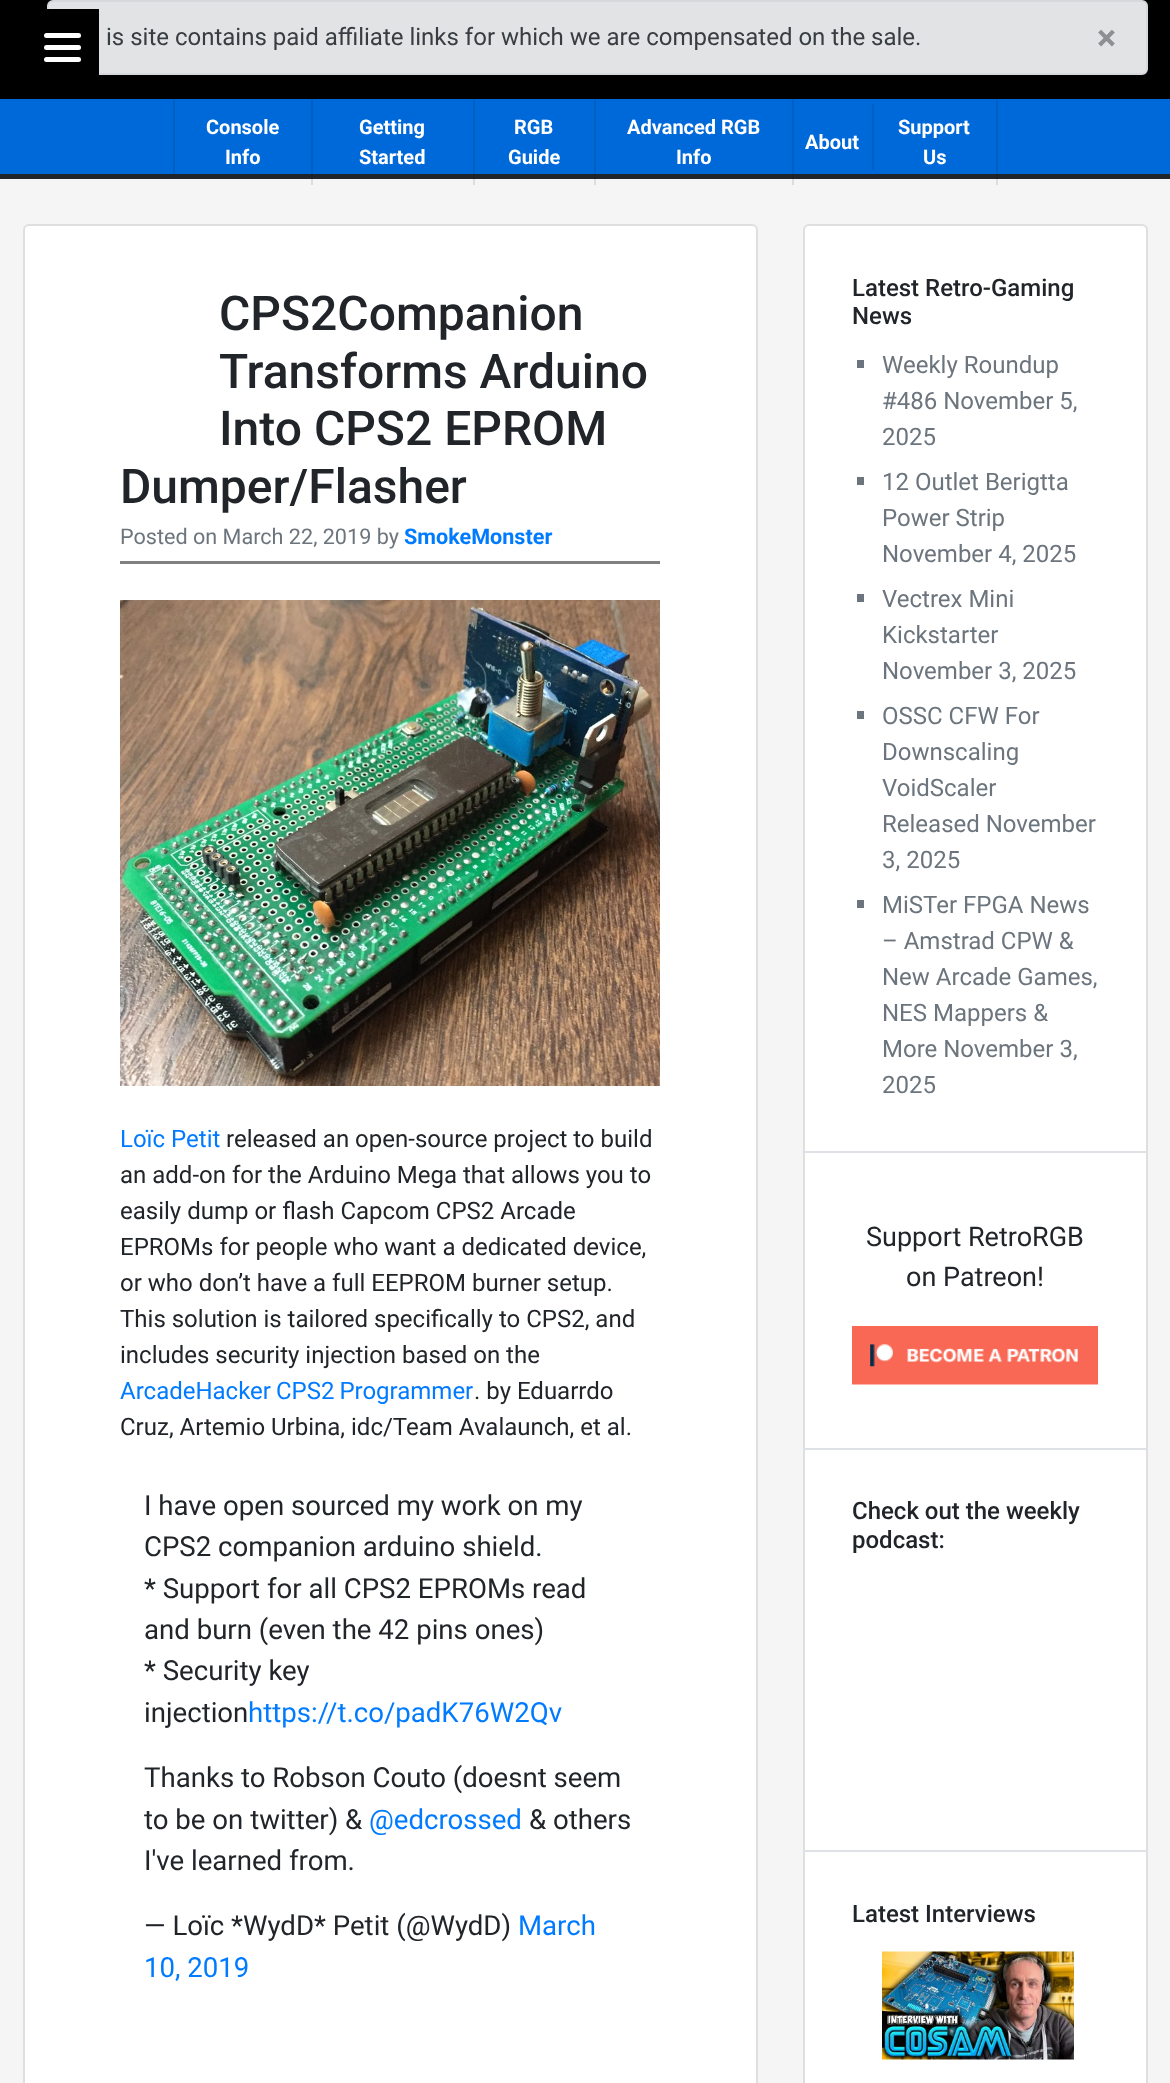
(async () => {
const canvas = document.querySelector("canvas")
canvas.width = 1170
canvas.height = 2083
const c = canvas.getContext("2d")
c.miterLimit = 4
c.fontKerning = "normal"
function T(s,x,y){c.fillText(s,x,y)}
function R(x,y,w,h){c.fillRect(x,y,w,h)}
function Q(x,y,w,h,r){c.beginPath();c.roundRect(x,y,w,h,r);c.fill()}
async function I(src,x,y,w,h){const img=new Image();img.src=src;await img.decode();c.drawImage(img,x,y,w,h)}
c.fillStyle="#f5f5f5"
R(0,0,1170,2083)
c.fillStyle="#ddd"
R(996,179,2,6)
R(792,179,2,6)
R(594,179,2,6)
R(473,179,2,6)
R(311,179,2,6)
c.fillStyle="#000"
R(0,0,1170,99)
c.fillStyle="#e2e3e5"
c.beginPath()
c.roundRect(48,1,1099,73,5)
c.fill()
c.strokeStyle="#d6d8db"
c.lineWidth=2
c.stroke()
c.fillStyle="#000"
R(47,9,52,66)
c.fillStyle="#fff"
Q(44,45,37,5,2.5)
Q(44,33,37,5,2.5)
Q(44,57,37,5,2.5)
c.fillStyle="#212529"
R(0,174,1170,5)
c.fillStyle="#1e2125"
R(996,174,2,5)
R(792,174,2,5)
R(594,174,2,5)
R(473,174,2,5)
R(311,174,2,5)
c.font="24px Roboto"
c.fillStyle="#383d41"
T("is site contains paid affiliate links for which we are compensated on the sale.",106,45)
c.font="bold 36px Roboto"
c.fillStyle="#8d9093"
T("×",1097,50)
c.fillStyle="#0069d9"
R(0,99,1170,75)
c.fillStyle="#005fc3"
R(996,99,2,75)
R(792,99,2,75)
R(594,99,2,75)
R(473,99,2,75)
R(311,99,2,75)
R(173,99,2,75)
c.font="bold 20px Roboto"
c.fillStyle="#fff"
T("Console",206,134)
T("Info",225,164)
T("Getting",359,134)
T("Started",359,164)
T("RGB",514,134)
T("Guide",508,164)
T("Advanced RGB",627,134)
T("Info",676,164)
c.fillStyle="#005fc3"
R(872,104,2,66)
c.fillStyle="#fff"
T("About",805,149)
T("Support",898,134)
T("Us",923,164)
c.beginPath()
c.roundRect(24,225,733,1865,5)
c.fill()
c.strokeStyle="#dfdfdf"
c.stroke()
c.fillStyle="#808080"
R(120,561,540,3)
c.font="500 48px Roboto"
c.fillStyle="#212529"
T("CPS2Companion",219,330)
T("Transforms Arduino",219,388)
T("Into CPS2 EPROM",219,445)
T("Dumper/Flasher",120,503)
c.font="21.6px Roboto"
c.fillStyle="#6c757d"
T("Posted on March 22, 2019 by",120,544)
c.font="bold 21.6px Roboto"
c.fillStyle="#007bff"
T("SmokeMonster",404,544)
await I("1.png",120,600,540,486)
c.font="24px Roboto"
T("Loïc Petit",120,1147)
c.fillStyle="#212529"
T("released an open-source project to build",226,1147)
T("an add-on for the Arduino Mega that allows you to",120,1183)
T("easily dump or flash Capcom CPS2 Arcade",120,1219)
T("EPROMs for people who want a dedicated device,",120,1255)
T("or who don’t have a full EEPROM burner setup.",120,1291)
T("This solution is tailored specifically to CPS2, and",120,1327)
T("includes security injection based on the",120,1363)
c.wordSpacing="-1px"
c.fillStyle="#007bff"
T("ArcadeHacker CPS2 Programmer",120,1399)
c.wordSpacing="0px"
c.fillStyle="#212529"
T(". by Eduarrdo",474,1399)
T("Cruz, Artemio Urbina, idc/Team Avalaunch, et al.",120,1435)
c.font="27.6px Roboto"
T("I have open sourced my work on my",144,1515)
T("CPS2 companion arduino shield.",144,1556)
T("* Support for all CPS2 EPROMs read",144,1598)
T("and burn (even the 42 pins ones)",144,1639)
T("* Security key",144,1680)
T("injection",144,1722)
c.fillStyle="#007bff"
T("https://t.co/padK76W2Qv",248,1722)
c.fillStyle="#212529"
T("Thanks to Robson Couto (doesnt seem",144,1787)
T("to be on twitter) &",144,1829)
c.fillStyle="#007bff"
T("@edcrossed",369,1829)
c.fillStyle="#212529"
T("& others",529,1829)
T("I've learned from.",144,1870)
T("— Loïc *WydD* Petit (@WydD)",144,1935)
c.fillStyle="#007bff"
T("March",518,1935)
T("10, 2019",144,1977)
c.fillStyle="#fff"
c.beginPath()
c.roundRect(804,225,343,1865,5)
c.fill()
c.stroke()
c.fillStyle="#dee2e6"
R(804,1151,342,2)
c.font="500 24px Roboto"
c.fillStyle="#212529"
T("Latest Retro-Gaming",852,296)
T("News",852,324)
c.fillStyle="#6c757d"
R(857,360,7,8)
c.font="24px Roboto"
T("Weekly Roundup",882,373)
T("#486 November 5,",882,409)
T("2025",882,445)
R(857,477,7,8)
T("12 Outlet Berigtta",882,490)
T("Power Strip",882,526)
T("November 4, 2025",882,562)
R(857,594,7,8)
T("Vectrex Mini",882,607)
T("Kickstarter",882,643)
T("November 3, 2025",882,679)
R(857,711,7,8)
T("OSSC CFW For",882,724)
T("Downscaling",882,760)
T("VoidScaler",882,796)
T("Released November",882,832)
T("3, 2025",882,868)
R(857,900,7,8)
T("MiSTer FPGA News",882,913)
T("– Amstrad CPW &",882,949)
T("New Arcade Games,",882,985)
T("NES Mappers &",882,1021)
T("More November 3,",882,1057)
T("2025",882,1093)
c.fillStyle="#dee2e6"
R(804,1448,342,2)
c.font="27px Roboto"
c.fillStyle="#212529"
T("Support RetroRGB",866,1246)
T("on Patreon!",906,1286)
await I("2.png",852,1326,246,59)
c.fillStyle="#dee2e6"
R(804,1850,342,2)
c.font="500 24px Roboto"
c.fillStyle="#212529"
T("Check out the weekly",852,1519)
T("podcast:",852,1548)
T("Latest Interviews",852,1922)
await I("3.png",882,1951,192,109)
})()
